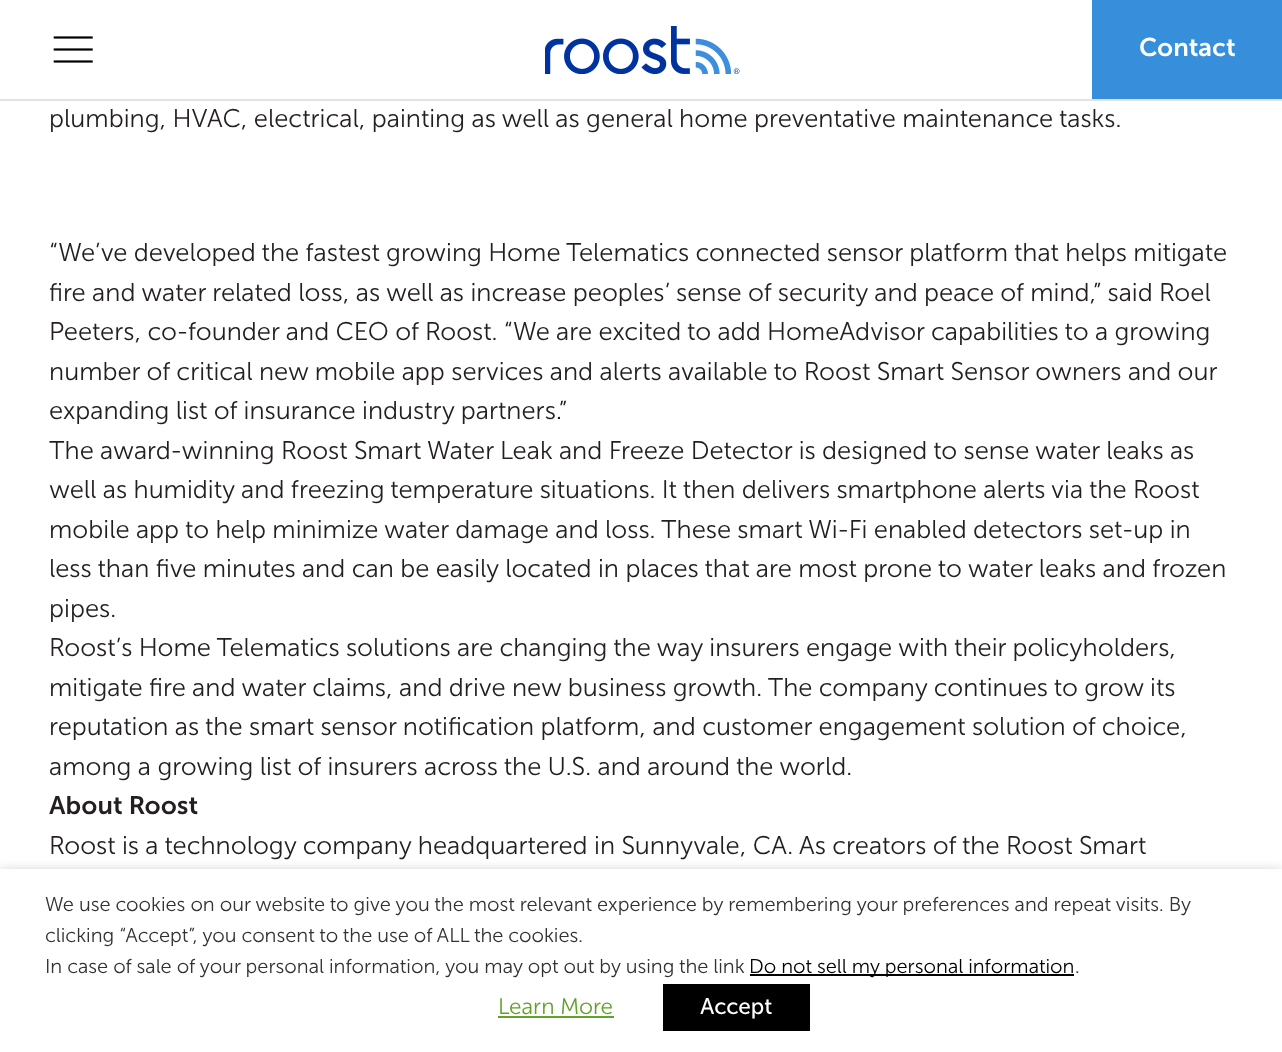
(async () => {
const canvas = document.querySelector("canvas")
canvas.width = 1282
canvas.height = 1052
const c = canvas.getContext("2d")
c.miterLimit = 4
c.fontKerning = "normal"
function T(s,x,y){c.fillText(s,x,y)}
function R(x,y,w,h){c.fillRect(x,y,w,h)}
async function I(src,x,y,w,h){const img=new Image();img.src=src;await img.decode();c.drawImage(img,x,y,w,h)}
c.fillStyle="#fff"
R(0,0,1282,1052)
c.fillStyle="#e2e2e2"
R(0,99,1282,2)
await I("1.png",545,26,195,48)
await I("2.png",53,36,40,27)
c.fillStyle="#378fdb"
R(1092,0,190,99)
c.font="25.5px 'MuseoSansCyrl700'"
c.fillStyle="#fff"
T("Contact",1139,56)
c.font="25.5px 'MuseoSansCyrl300'"
c.fillStyle="#231f20"
T("plumbing, HVAC, electrical, painting as well as general home preventative maintenance tasks.",49,127)
T("“We’ve developed the fastest growing Home Telematics connected sensor platform that helps mitigate",49,261)
T("fire and water related loss, as well as increase peoples’ sense of security and peace of mind,” said Roel",49,301)
T("Peeters, co-founder and CEO of Roost. “We are excited to add HomeAdvisor capabilities to a growing",49,340)
T("number of critical new mobile app services and alerts available to Roost Smart Sensor owners and our",49,380)
T("expanding list of insurance industry partners.”",49,419)
T("The award-winning Roost Smart Water Leak and Freeze Detector is designed to sense water leaks as",49,459)
T("well as humidity and freezing temperature situations. It then delivers smartphone alerts via the Roost",49,498)
T("mobile app to help minimize water damage and loss. These smart Wi-Fi enabled detectors set-up in",49,538)
T("less than five minutes and can be easily located in places that are most prone to water leaks and frozen",49,577)
T("pipes.",49,617)
T("Roost’s Home Telematics solutions are changing the way insurers engage with their policyholders,",49,656)
T("mitigate fire and water claims, and drive new business growth. The company continues to grow its",49,696)
T("reputation as the smart sensor notification platform, and customer engagement solution of choice,",49,735)
T("among a growing list of insurers across the U.S. and around the world.",49,775)
c.font="25.5px 'MuseoSansCyrl700'"
T("About Roost",49,814)
c.font="25.5px 'MuseoSansCyrl300'"
T("Roost is a technology company headquartered in Sunnyvale, CA. As creators of the Roost Smart",49,854)
c.fillStyle="#00000080"
c.filter="blur(7.5px)"
c.beginPath()
c.rect(0,876,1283,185)
c.fill()
c.filter="none"
c.fillStyle="#fff"
R(0,869,1282,183)
c.font="20px 'MuseoSansCyrl300'"
c.fillStyle="#333"
T("We use cookies on our website to give you the most relevant experience by remembering your preferences and repeat visits. By",45,911)
T("clicking “Accept”, you consent to the use of ALL the cookies.",45,942)
T("In case of sale of your personal information, you may opt out by using the link",45,973)
c.fillStyle="#000"
R(750,974,324,2)
T("Do not sell my personal information",749,973)
c.fillStyle="#333"
T(".",1075,973)
c.font="22.5px 'MuseoSansCyrl300'"
c.fillStyle="#61a229"
T("Learn More",498,1014)
R(498,1016,116,2)
c.fillStyle="#000"
R(663,984,147,47)
c.font="22.5px 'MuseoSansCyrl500'"
c.fillStyle="#fff"
T("Accept",700,1014)
})()
